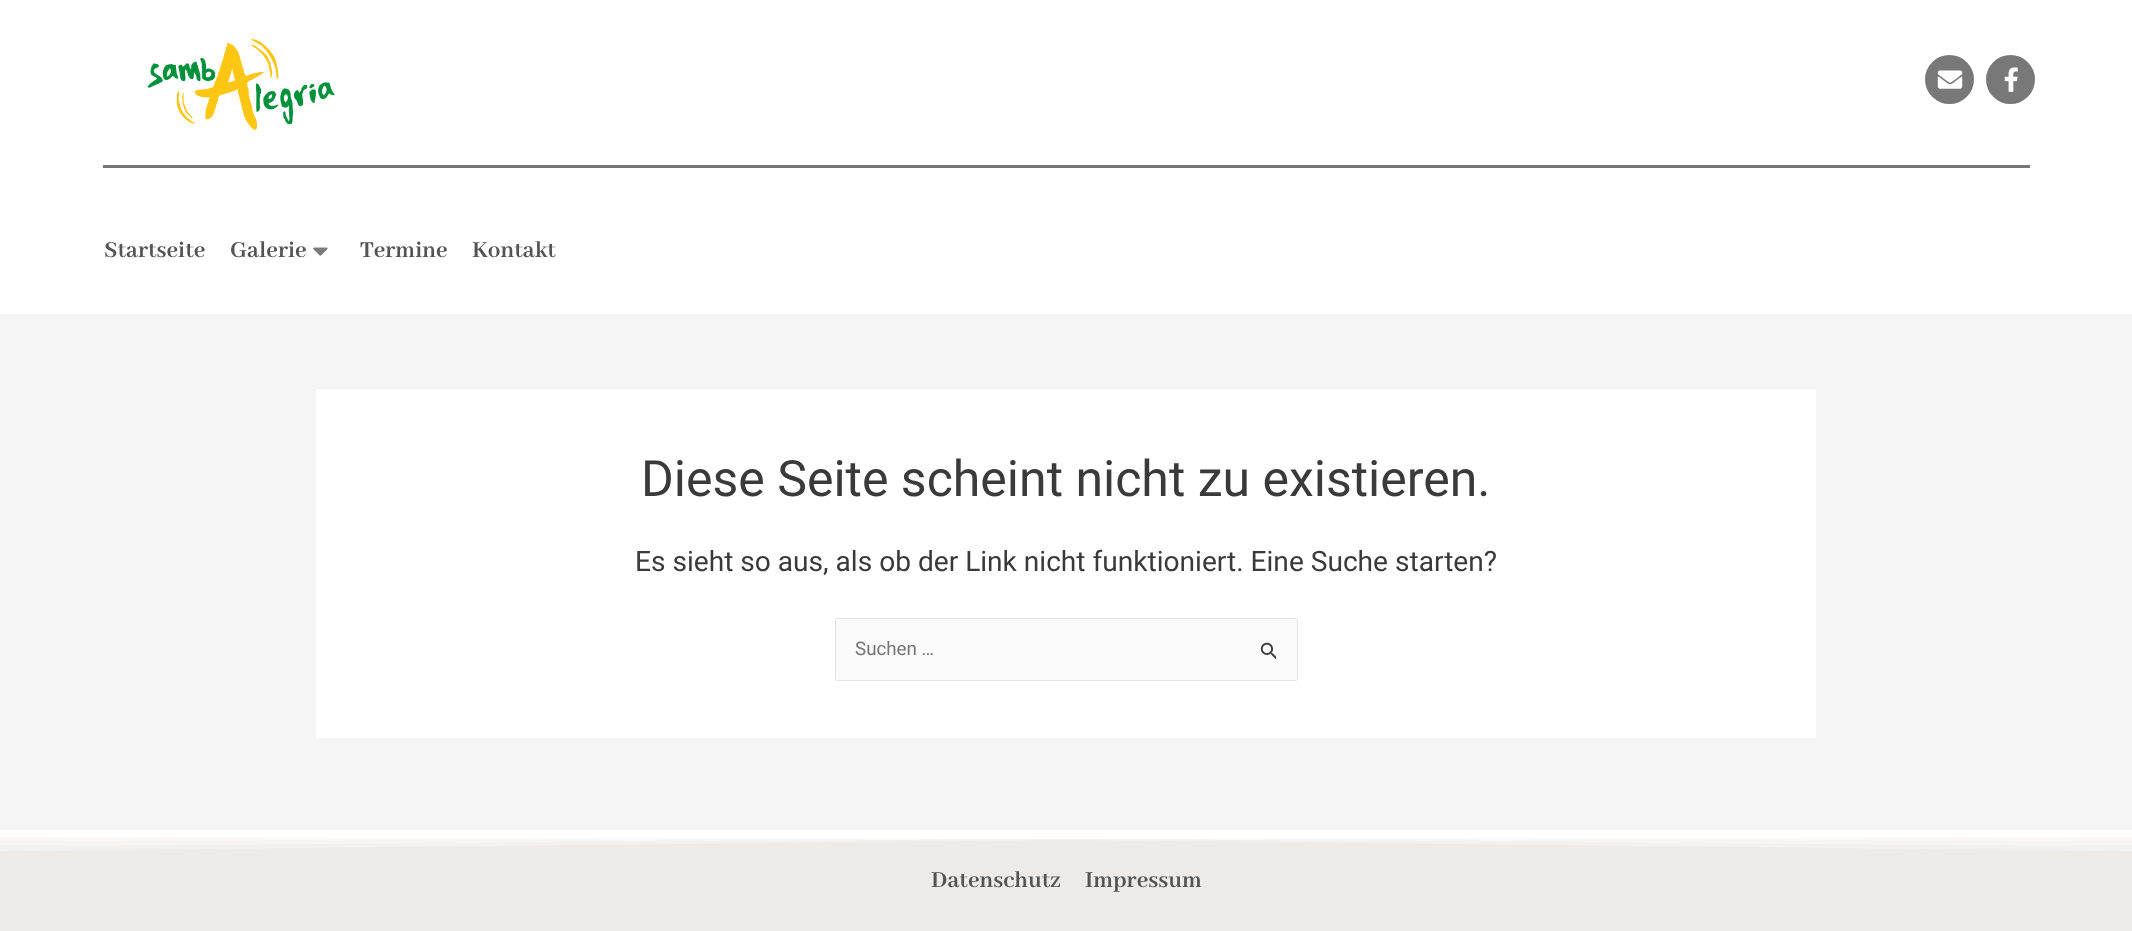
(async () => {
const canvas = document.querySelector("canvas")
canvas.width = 2132
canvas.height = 931
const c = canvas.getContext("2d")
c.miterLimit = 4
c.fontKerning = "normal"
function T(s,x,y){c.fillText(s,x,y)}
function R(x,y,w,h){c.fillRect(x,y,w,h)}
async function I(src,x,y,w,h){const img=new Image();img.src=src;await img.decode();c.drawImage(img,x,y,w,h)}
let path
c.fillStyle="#f5f5f5"
R(0,0,2132,931)
c.fillStyle="#fff"
R(0,0,2132,314)
await I("1.png",147,38,188,92)
c.fillStyle="#787878"
c.beginPath()
c.arc(1949.5,79.5,24.5,0,7)
c.fill()
await I("2.png",1937,70,26,19)
c.beginPath()
c.arc(2010.5,79.5,24.5,0,7)
c.fill()
await I("3.png",2004,67,14,25)
c.fillStyle="#767676"
R(103,165,1927,3)
c.font="bold 25px Abhaya Libre"
c.fillStyle="#545454"
T("Startseite",104,257)
T("Galerie",230,257)
await I("4.png",313,247,15,9)
T("Termine",360,257)
T("Kontakt",472,257)
c.fillStyle="#fff"
R(316,389,1500,349)
c.font="50px Roboto"
c.fillStyle="#3a3a3a"
T("Diese Seite scheint nicht zu existieren.",641,496)
c.font="28.1px Roboto"
T("Es sieht so aus, als ob der Link nicht funktioniert. Eine Suche starten?",635,571)
c.fillStyle="#fafafa"
c.beginPath()
c.roundRect(835.5,618.5,462,62,2)
c.fill()
c.strokeStyle="#e5e5e5"
c.stroke()
c.font="18.75px Roboto"
c.fillStyle="#757575"
T("Suchen …",855,655)
await I("5.png",1260,642,16,18)
c.fillStyle="#edeae8"
R(0,837,2132,94)
c.fillStyle="#ffffff54"
path = new Path2D("M-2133 830v44l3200-34l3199 34v-44z")
c.fill(path)
path = new Path2D("M-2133 830v30l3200-21l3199 21v-30z")
c.fill(path)
path = new Path2D("M-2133 830v15l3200-6l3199 6v-15z")
c.fill(path)
c.fillStyle="#fff"
path = new Path2D("M-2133 830v3l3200 6l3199-6v-3z")
c.fill(path)
c.font="bold 25px Abhaya Libre"
c.fillStyle="#545454"
T("Datenschutz",931,887)
T("Impressum",1085,887)
})()
